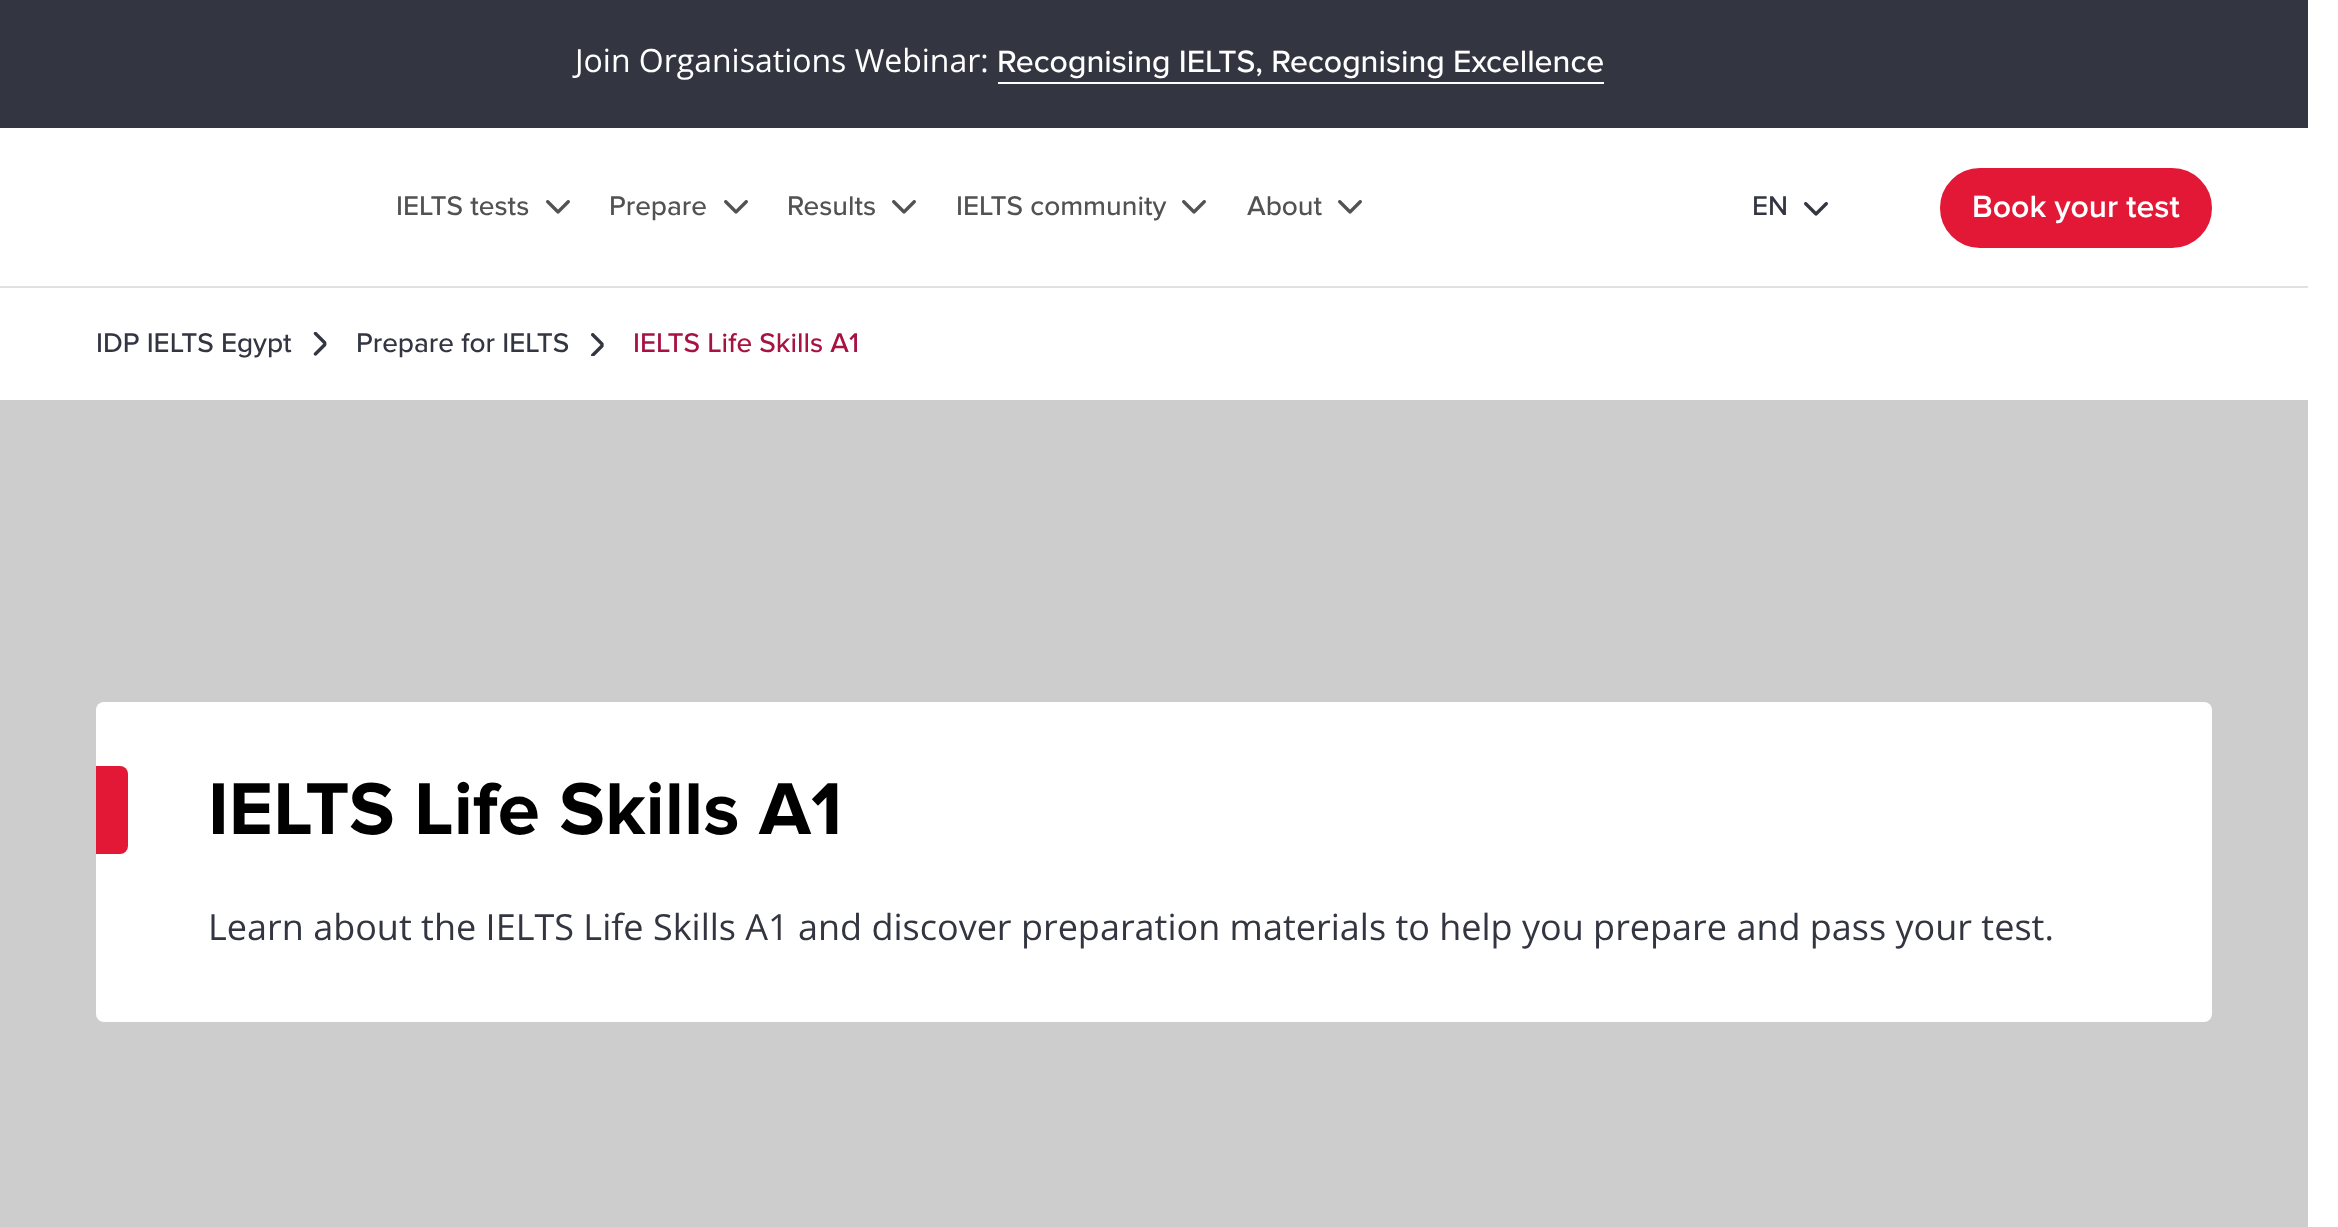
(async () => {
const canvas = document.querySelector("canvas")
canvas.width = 2338
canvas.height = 1227
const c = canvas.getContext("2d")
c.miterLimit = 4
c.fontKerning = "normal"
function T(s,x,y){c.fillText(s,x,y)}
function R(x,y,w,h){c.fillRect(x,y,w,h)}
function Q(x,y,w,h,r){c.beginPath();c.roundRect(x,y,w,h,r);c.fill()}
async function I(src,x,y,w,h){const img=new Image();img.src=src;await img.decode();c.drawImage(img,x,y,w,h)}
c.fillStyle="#fff"
R(0,0,2338,1227)
c.fillStyle="#333541"
R(0,0,2308,128)
c.font="32px Open Sans"
c.fillStyle="#fff"
T("Join Organisations Webinar:",575,72)
R(998,82,606,2)
c.font="500 32px Proxima Nova"
T("Recognising IELTS, Recognising Excellence",997,72)
c.fillStyle="#e1e1e1"
R(0,286,2308,2)
c.font="500 28px Proxima Nova"
c.fillStyle="#525252"
T("IELTS tests",396,215)
await I("1.png",546,200,24,14)
T("Prepare",609,215)
await I("1.png",724,200,24,14)
T("Results",787,215)
await I("1.png",892,200,24,14)
T("IELTS community",956,215)
await I("1.png",1182,200,24,14)
T("About",1247,215)
await I("1.png",1338,200,24,14)
c.fillStyle="#333541"
T("EN",1752,215)
await I("2.png",1804,202,24,14)
c.fillStyle="#e31837"
c.beginPath()
c.roundRect(1941,169,270,78,39)
c.fill()
c.strokeStyle="#e31837"
c.lineWidth=2
c.stroke()
c.font="600 32px Proxima Nova"
c.fillStyle="#fff"
T("Book your test",1972,217)
c.font="500 28px Proxima Nova"
c.fillStyle="#333541"
T("IDP IELTS Egypt",96,352)
await I("3.png",313,332,14,24)
T("Prepare for IELTS",356,352)
await I("4.png",591,333,13,23)
c.fillStyle="#a61242"
T("IELTS Life Skills A1",633,352)
c.fillStyle="#cdcdcd"
R(0,400,2308,827)
c.fillStyle="#fff"
Q(96,702,2116,320,8)
c.fillStyle="#e31837"
c.beginPath()
c.roundRect(96,766,32,88,[0,8,8,0])
c.fill()
c.font="bold 76px Proxima Nova"
c.fillStyle="#000"
T("IELTS Life Skills A1",208,834)
c.font="36px Open Sans"
c.fillStyle="#333541"
T("Learn about the IELTS Life Skills A1 and discover preparation materials to help you prepare and pass your test.",208,940)
})()
